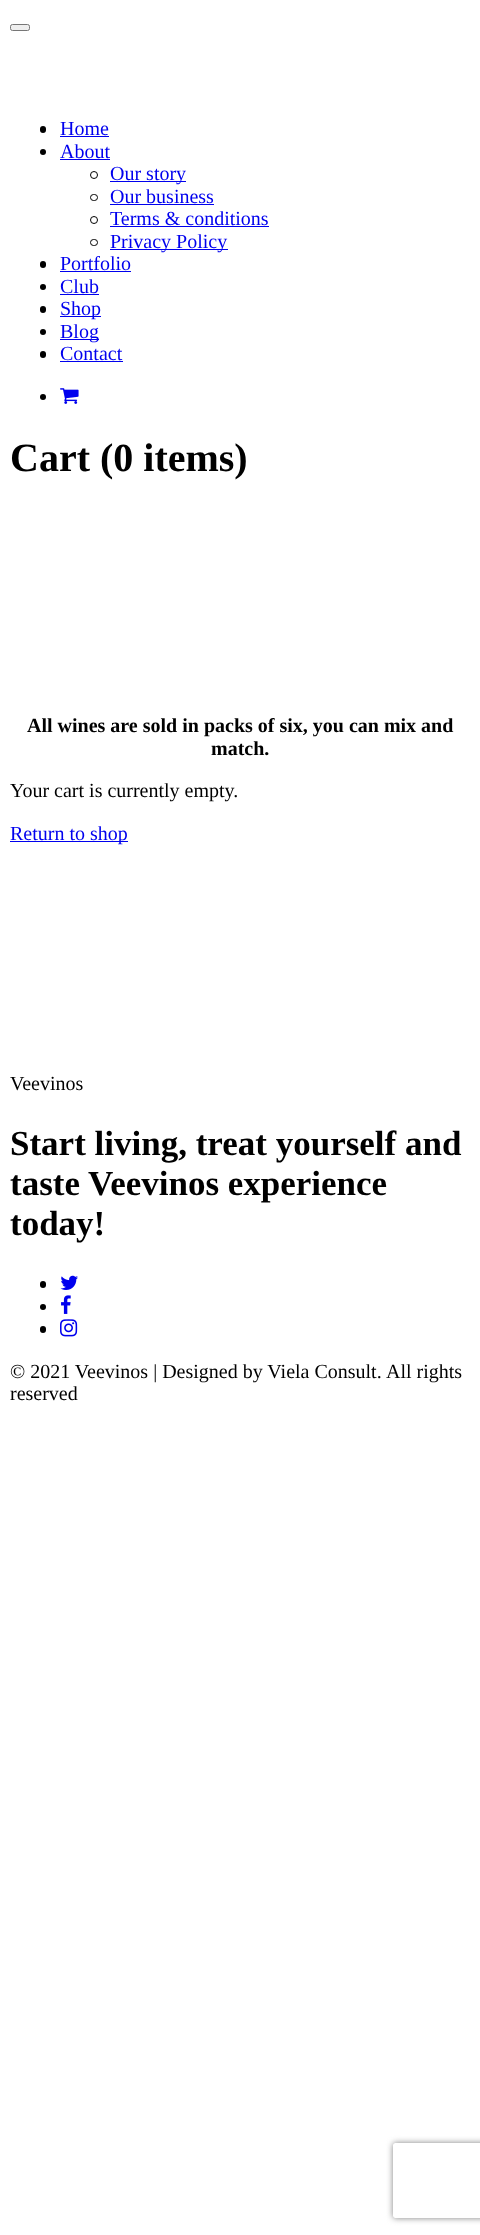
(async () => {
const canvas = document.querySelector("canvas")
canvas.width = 480
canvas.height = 2235
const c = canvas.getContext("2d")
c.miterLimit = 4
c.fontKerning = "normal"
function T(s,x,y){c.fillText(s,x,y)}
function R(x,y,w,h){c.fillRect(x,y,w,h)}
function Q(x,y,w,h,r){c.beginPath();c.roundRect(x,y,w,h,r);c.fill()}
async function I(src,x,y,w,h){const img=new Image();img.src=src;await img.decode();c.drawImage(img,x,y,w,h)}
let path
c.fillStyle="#fff"
R(0,0,480,2235)
c.fillStyle="#efefef"
c.beginPath()
c.roundRect(10.5,24.5,19,6,2)
c.fill()
c.strokeStyle="#767676"
c.stroke()
c.fillStyle="#000"
Q(40,126,6,7,3)
c.font="20px Liberation Serif"
c.fillStyle="#00e"
T("Home",60,135)
R(60,136,49,1)
c.fillStyle="#000"
c.beginPath()
c.arc(43,152,3,0,7)
c.fill()
c.fillStyle="#00e"
T("About",60,158)
R(60,159,50,1)
c.beginPath()
c.arc(94,175,3.5,0,7)
c.strokeStyle="#000"
c.stroke()
R(110,181,76,1)
T("Our story",110,180)
c.beginPath()
c.roundRect(90.5,194.5,7,6,3)
c.stroke()
T("Our business",110,203)
R(110,204,104,1)
c.beginPath()
c.arc(94,220,3.5,0,7)
c.stroke()
T("Terms & conditions",110,225)
R(110,226,159,1)
c.beginPath()
c.roundRect(90.5,239.5,7,6,3)
c.stroke()
R(110,249,118,1)
T("Privacy Policy",110,248)
c.fillStyle="#000"
Q(40,261,6,7,3)
c.fillStyle="#00e"
T("Portfolio",60,270)
R(60,271,71,1)
c.fillStyle="#000"
c.beginPath()
c.arc(43,287,3,0,7)
c.fill()
c.fillStyle="#00e"
T("Club",60,293)
R(60,294,39,1)
c.fillStyle="#000"
Q(40,306,6,7,3)
c.fillStyle="#00e"
R(60,316,41,1)
T("Shop",60,315)
c.fillStyle="#000"
c.beginPath()
c.arc(43,332,3,0,7)
c.fill()
c.fillStyle="#00e"
R(60,339,39,1)
T("Blog",60,338)
c.fillStyle="#000"
Q(40,351,6,7,3)
c.fillStyle="#00e"
T("Contact",60,360)
R(60,361,63,1)
c.fillStyle="#000"
c.beginPath()
c.arc(43,397,3,0,7)
c.fill()
await I("1.png",60,388,19,16)
c.font="bold 40px Liberation Serif"
T("Cart (0 items)",10,471)
c.font="bold 20px Liberation Serif"
T("All wines are sold in packs of six, you can mix and",27,732)
T("match.",211,755)
c.font="20px Liberation Serif"
T("Your cart is currently empty.",10,797)
c.fillStyle="#00e"
R(10,841,118,1)
T("Return to shop",10,840)
c.fillStyle="#000"
T("Veevinos",10,1090)
c.font="bold 35px Liberation Serif"
T("Start living, treat yourself and",10,1155)
T("taste Veevinos experience",10,1195)
T("today!",10,1235)
Q(40,1281,6,7,3)
await I("2.png",60,1275,18,15)
c.beginPath()
c.arc(43,1307,3,0,7)
c.fill()
await I("3.png",61,1295,10,19)
Q(40,1326,6,7,3)
await I("4.png",60,1319,18,18)
c.font="20px Liberation Serif"
T("© 2021 Veevinos | Designed by Viela Consult.",10,1378)
T("All rights",386,1378)
T("reserved",10,1400)
c.save()
path = new Path2D("M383 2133h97v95h-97zm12.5 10h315c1.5 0 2.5 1 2.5 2.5v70c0 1.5-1 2.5-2.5 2.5h-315c-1.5 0-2.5-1-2.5-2.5v-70c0-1.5 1-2.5 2.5-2.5z")
c.clip(path,"evenodd")
c.fillStyle="#808080"
c.filter="blur(3px)"
c.beginPath()
c.roundRect(393,2143,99,75,2.5)
c.fill()
c.filter="none"
c.restore()
})()
